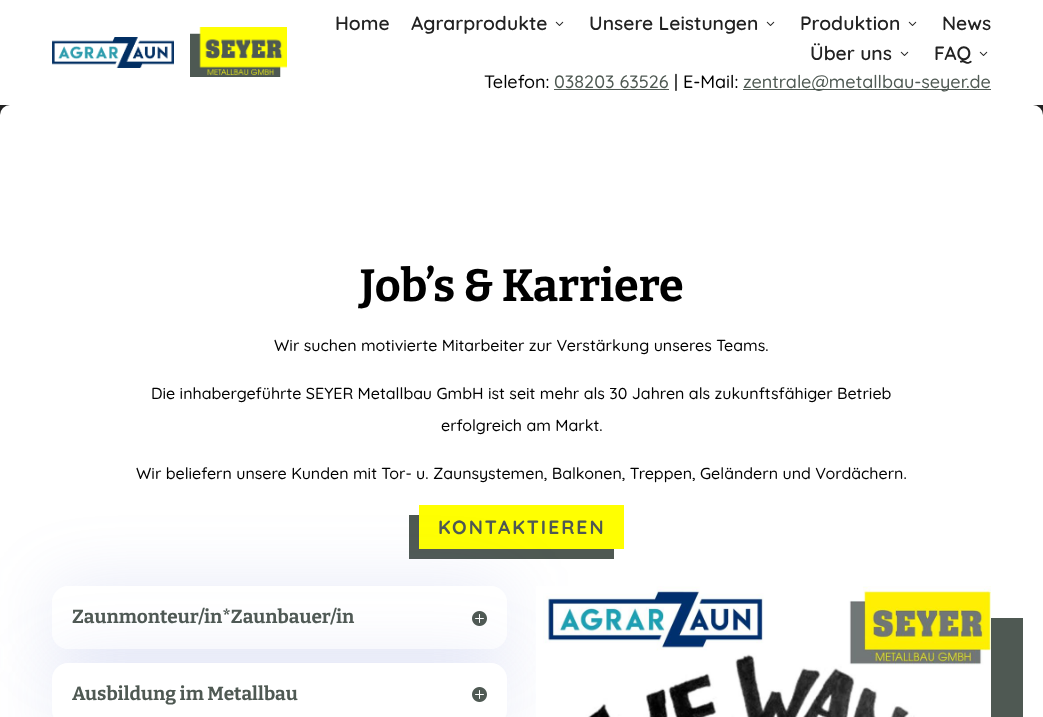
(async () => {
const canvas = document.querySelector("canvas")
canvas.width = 1043
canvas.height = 717
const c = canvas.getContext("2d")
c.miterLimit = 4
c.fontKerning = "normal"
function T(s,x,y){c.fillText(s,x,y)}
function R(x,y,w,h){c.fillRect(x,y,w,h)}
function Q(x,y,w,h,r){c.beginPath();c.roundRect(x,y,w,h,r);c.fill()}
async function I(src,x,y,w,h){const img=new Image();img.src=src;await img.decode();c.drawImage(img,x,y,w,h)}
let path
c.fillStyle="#222"
R(0,0,1043,717)
c.fillStyle="#fff"
R(0,0,1043,105)
await I("1.png",52,37,122,31)
await I("2.png",190,27,97,50)
c.font="600 19.25px Quicksand"
c.fillStyle="#222"
T("Home",335,30)
T("Agrarprodukte",411,30)
await I("3.png",555,21,9,5)
T("Unsere Leistungen",589,30)
await I("3.png",766,21,9,5)
T("Produktion",800,30)
await I("3.png",908,21,9,5)
T("News",942,30)
T("Über uns",810,60)
await I("3.png",900,51,9,5)
T("FAQ",934,60)
await I("3.png",979,51,9,5)
c.font="300 18px Quicksand"
c.fillStyle="#000"
T("Telefon:",484,88)
c.fillStyle="#4f5953"
T("038203 63526",554,88)
R(554,89,115,1)
c.fillStyle="#000"
T("| E-Mail:",674,88)
c.fillStyle="#4f5953"
R(743,89,248,1)
T("zentrale@metallbau-seyer.de",743,88)
c.fillStyle="#fff"
Q(0,105,1043,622,10)
c.font="100 45px Bitter"
c.fillStyle="#000"
T("Job’s & Karriere",360,301)
c.font="300 16px Quicksand"
T("Wir suchen motivierte Mitarbeiter zur Verstärkung unseres Teams.",274,351)
T("Die inhabergeführte SEYER Metallbau GmbH ist seit mehr als 30 Jahren als zukunftsfähiger Betrieb",151,399)
T("erfolgreich am Markt.",441,431)
T("Wir beliefern unsere Kunden mit Tor- u. Zaunsystemen, Balkonen, Treppen, Geländern und Vordächern.",136,479)
c.fillStyle="#4f5953"
path = new Path2D("M409 515v44h205v-10h-195v-34z")
c.fill(path)
c.fillStyle="#ffff01"
R(419,505,205,44)
c.letterSpacing="2px"
c.font="300 19.25px 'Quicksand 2'"
c.fillStyle="#4f5953"
T("KONTAKTIEREN",438,534)
c.fillStyle="#6e82d02e"
c.filter="blur(35px)"
c.beginPath()
c.roundRect(52,588,455,63,16)
c.fill()
c.filter="none"
c.fillStyle="#fff"
Q(52,586,455,63,16)
c.letterSpacing="0px"
c.font="100 19px Bitter"
c.fillStyle="#4f5953"
T("Zaunmonteur/in*Zaunbauer/in",72,623)
await I("4.png",472,611,15,15)
c.fillStyle="#6e82d02e"
c.filter="blur(35px)"
c.beginPath()
c.roundRect(52,665,455,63,16)
c.fill()
c.filter="none"
c.fillStyle="#fff"
Q(52,663,455,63,16)
c.fillStyle="#4f5953"
T("Ausbildung im Metallbau",72,700)
await I("4.png",472,687,15,15)
path = new Path2D("M568 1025v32h455v-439h-32v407z")
c.fill(path)
await I("5.png",536,586,455,131)
})()
